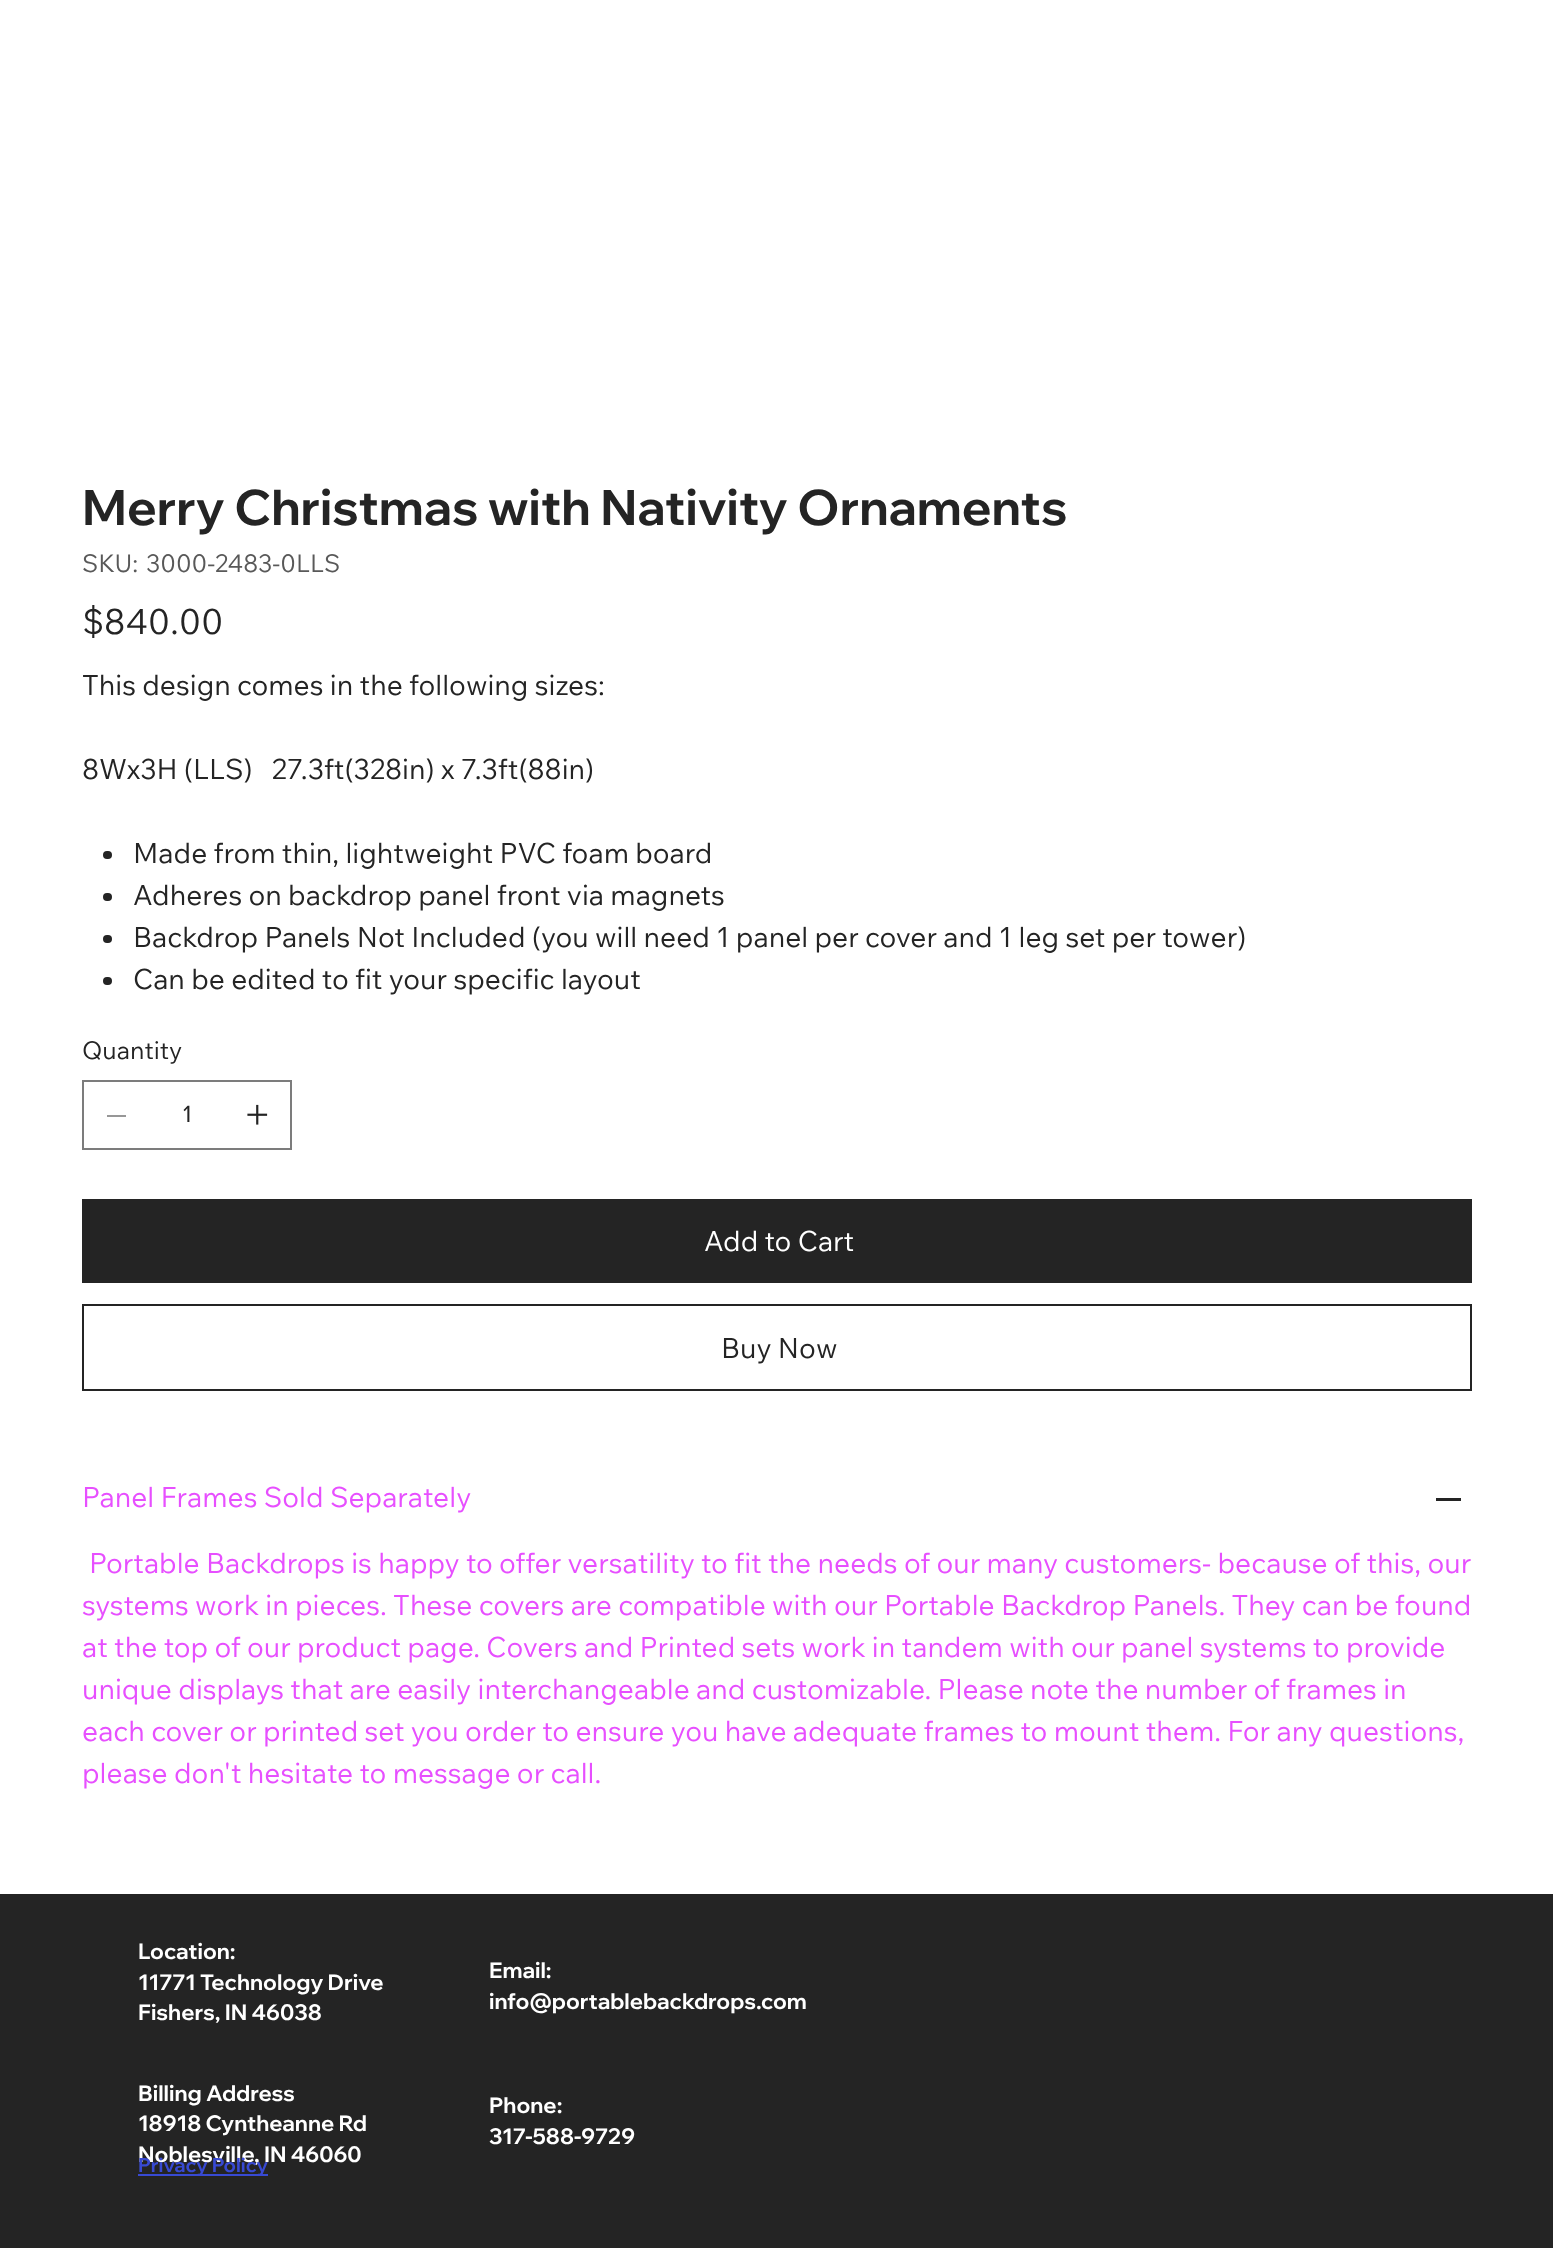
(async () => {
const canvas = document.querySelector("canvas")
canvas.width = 1553
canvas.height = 2248
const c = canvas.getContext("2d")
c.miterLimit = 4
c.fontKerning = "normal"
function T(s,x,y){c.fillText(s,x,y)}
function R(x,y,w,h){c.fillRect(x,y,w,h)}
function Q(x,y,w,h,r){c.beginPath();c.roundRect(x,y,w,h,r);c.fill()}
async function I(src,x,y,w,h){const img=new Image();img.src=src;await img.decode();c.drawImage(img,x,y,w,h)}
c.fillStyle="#fff"
R(0,0,1553,2248)
c.font="bold 49px Wix Madefor Display"
c.fillStyle="#242424"
T("Merry Christmas with Nativity Ornaments",82,525)
c.font="24.5px Wix Madefor Text"
c.fillStyle="#595959"
T("SKU:",82,572)
T("3000-2483-0LLS",146,572)
c.font="35px Wix Madefor Text"
c.fillStyle="#242424"
T("$840.00",82,634)
c.font="28px Wix Madefor Text"
T("This design comes in the following sizes:",82,695)
T("8Wx3H (LLS)   27.3ft(328in) x 7.3ft(88in)",82,779)
Q(103,851,9,8,4)
T("Made from thin, lightweight PVC foam board",133,863)
Q(103,893,9,8,4)
T("Adheres on backdrop panel front via magnets",133,905)
Q(103,935,9,8,4)
T("Backdrop Panels Not Included (you will need 1 panel per cover and 1 leg set per tower)",133,947)
Q(103,977,9,8,4)
T("Can be edited to fit your specific layout",133,989)
c.font="24.5px Wix Madefor Text"
T("Quantity",82,1059)
c.strokeStyle="#7c7c7c"
c.lineWidth=2
c.strokeRect(83,1081,208,68)
c.fillStyle="#979797"
R(107,1115,19,2)
c.font="24.5px 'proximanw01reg'"
c.fillStyle="#242424"
T("1",183,1122)
await I("1.png",247,1104,21,21)
R(82,1199,1390,84)
c.font="28px Wix Madefor Text"
c.fillStyle="#fff"
T("Add to Cart",704,1251)
c.strokeStyle="#242424"
c.strokeRect(83,1305,1388,85)
c.fillStyle="#242424"
T("Buy Now",721,1358)
c.fillStyle="#e74fff"
T("Panel Frames Sold Separately",82,1507)
c.fillStyle="#242424"
R(1436,1498,25,3)
c.fillStyle="#e74fff"
T("Portable Backdrops is happy to offer versatility to fit the needs of our many customers- because of this, our",89,1573)
T("systems work in pieces. These covers are compatible with our Portable Backdrop Panels. They can be found",82,1615)
T("at the top of our product page. Covers and Printed sets work in tandem with our panel systems to provide",82,1657)
T("unique displays that are easily interchangeable and customizable. Please note the number of frames in",82,1699)
T("each cover or printed set you order to ensure you have adequate frames to mount them. For any questions,",82,1741)
T("please don't hesitate to message or call.",82,1783)
c.fillStyle="#242424"
R(0,1894,1553,354)
c.font="bold 21.8px Wix Madefor Display"
c.fillStyle="#fff"
T("Location:",138,1959)
T("11771 Technology Drive",138,1990)
T("Fishers, IN 46038",138,2020)
T("Email:",489,1978)
T("info@portablebackdrops.com",489,2009)
T("Billing Address",138,2101)
T("18918 Cyntheanne Rd",138,2131)
T("Noblesville, IN 46060",138,2162)
T("Phone:",489,2113)
T("317-588-9729",489,2144)
c.fillStyle="#384ad3"
R(138,2174,130,2)
c.font="bold 19.5px Wix Madefor Display"
T("Privacy Policy",138,2172)
})()
